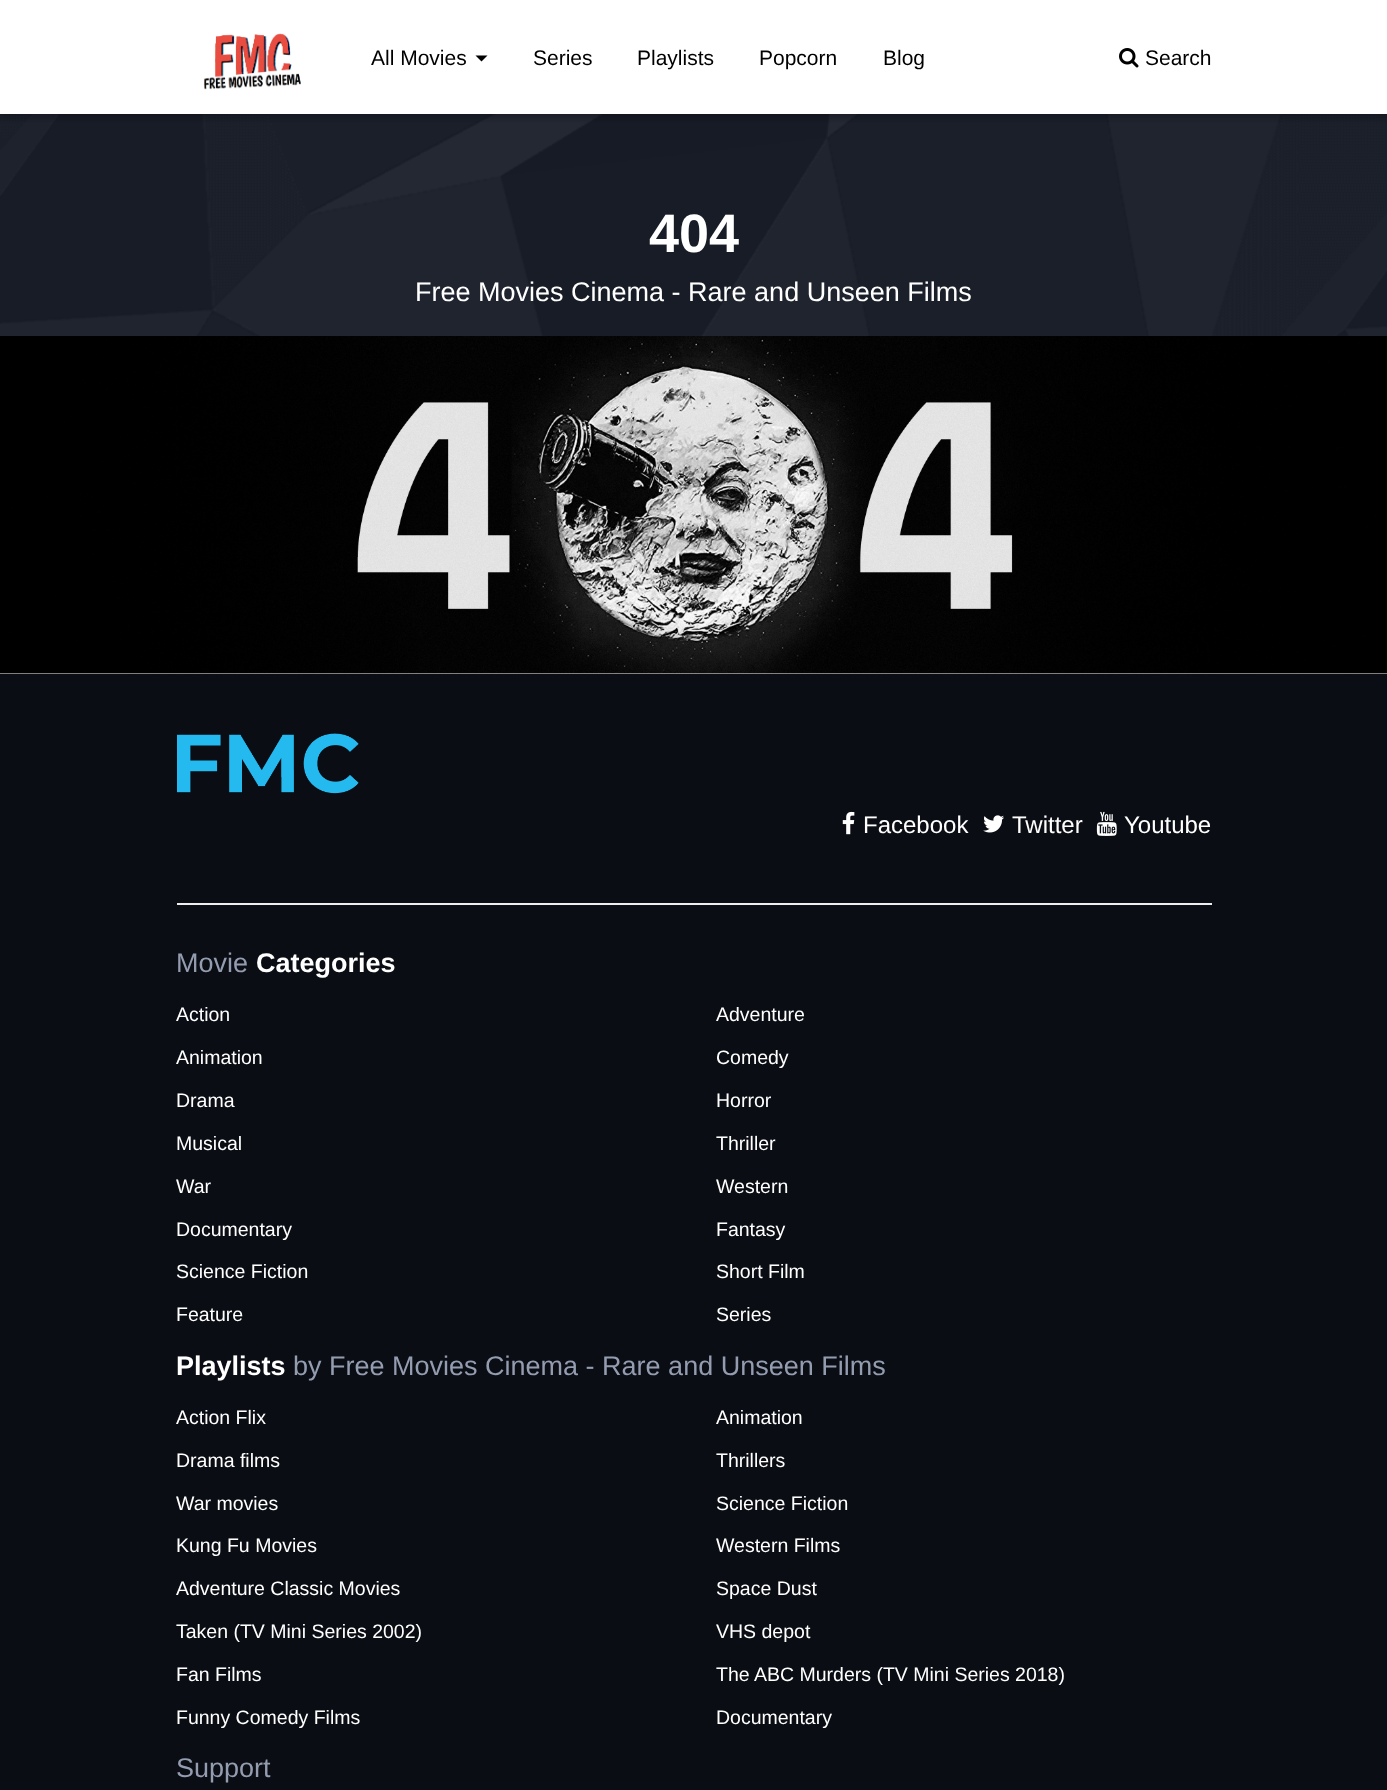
(async () => {
const canvas = document.querySelector("canvas")
canvas.width = 1387
canvas.height = 1790
const c = canvas.getContext("2d")
c.miterLimit = 4
c.fontKerning = "normal"
function T(s,x,y){c.fillText(s,x,y)}
function R(x,y,w,h){c.fillRect(x,y,w,h)}
async function I(src,x,y,w,h){const img=new Image();img.src=src;await img.decode();c.drawImage(img,x,y,w,h)}
let path
c.fillStyle="#fff"
R(0,0,1387,1790)
c.fillStyle="#131722"
R(0,114,1387,222)
await I("3.png",0,114,1387,222)
c.save()
c.beginPath()
c.rect(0,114,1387,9)
c.clip()
c.fillStyle="#00000059"
c.filter="blur(4.5px)"
c.beginPath()
c.rect(0,2,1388,114)
c.fill()
c.filter="none"
c.restore()
await I("1.png",203,33,98,57)
c.font="21px Liberation Sans"
c.fillStyle="#000"
T("All Movies",371,65)
path = new Path2D("M475.5 55.5h12l-6 6z")
c.fill(path)
T("Series",533,65)
T("Playlists",637,65)
T("Popcorn",759,65)
T("Blog",883,65)
await I("2.png",1119,48,20,20)
T("Search",1145,65)
c.font="bold 54px Liberation Sans"
c.fillStyle="#fff"
T("404",649,252)
c.font="27px Liberation Sans"
T("Free Movies Cinema - Rare and Unseen Films",415,301)
await I("4.png",0,336,1387,338)
c.fillStyle="#0a0d14"
R(0,674,1387,1116)
await I("5.png",177,733,182,61)
await I("6.png",842,811,13,24)
c.font="24px Liberation Sans"
c.fillStyle="#fff"
T("Facebook",863,833)
await I("7.png",983,815,21,18)
T("Twitter",1012,833)
await I("8.png",1096,811,21,25)
T("Youtube",1124,833)
c.fillStyle="#eee"
R(177,903,1035,2)
c.font="27px Liberation Sans"
c.fillStyle="#949cb0"
T("Movie",176,972)
c.font="bold 27px Liberation Sans"
c.fillStyle="#fff"
T("Categories",256,972)
c.font="19.5px Liberation Sans"
T("Action",176,1021)
T("Adventure",716,1021)
T("Animation",176,1064)
T("Comedy",716,1064)
T("Drama",176,1107)
T("Horror",716,1107)
T("Musical",176,1150)
T("Thriller",716,1150)
T("War",176,1193)
T("Western",716,1193)
T("Documentary",176,1236)
T("Fantasy",716,1236)
T("Science Fiction",176,1278)
T("Short Film",716,1278)
T("Feature",176,1321)
T("Series",716,1321)
c.font="bold 27px Liberation Sans"
T("Playlists",176,1375)
c.font="27px Liberation Sans"
c.fillStyle="#949cb0"
T("by Free Movies Cinema - Rare and Unseen Films",293,1375)
c.font="19.5px Liberation Sans"
c.fillStyle="#fff"
T("Action Flix",176,1424)
T("Animation",716,1424)
T("Drama films",176,1467)
T("Thrillers",716,1467)
T("War movies",176,1510)
T("Science Fiction",716,1510)
T("Kung Fu Movies",176,1552)
T("Western Films",716,1552)
T("Adventure Classic Movies",176,1595)
T("Space Dust",716,1595)
T("Taken (TV Mini Series 2002)",176,1638)
T("VHS depot",716,1638)
T("Fan Films",176,1681)
T("The ABC Murders (TV Mini Series 2018)",716,1681)
T("Funny Comedy Films",176,1724)
T("Documentary",716,1724)
c.font="27px Liberation Sans"
c.fillStyle="#949cb0"
T("Support",176,1777)
})()
